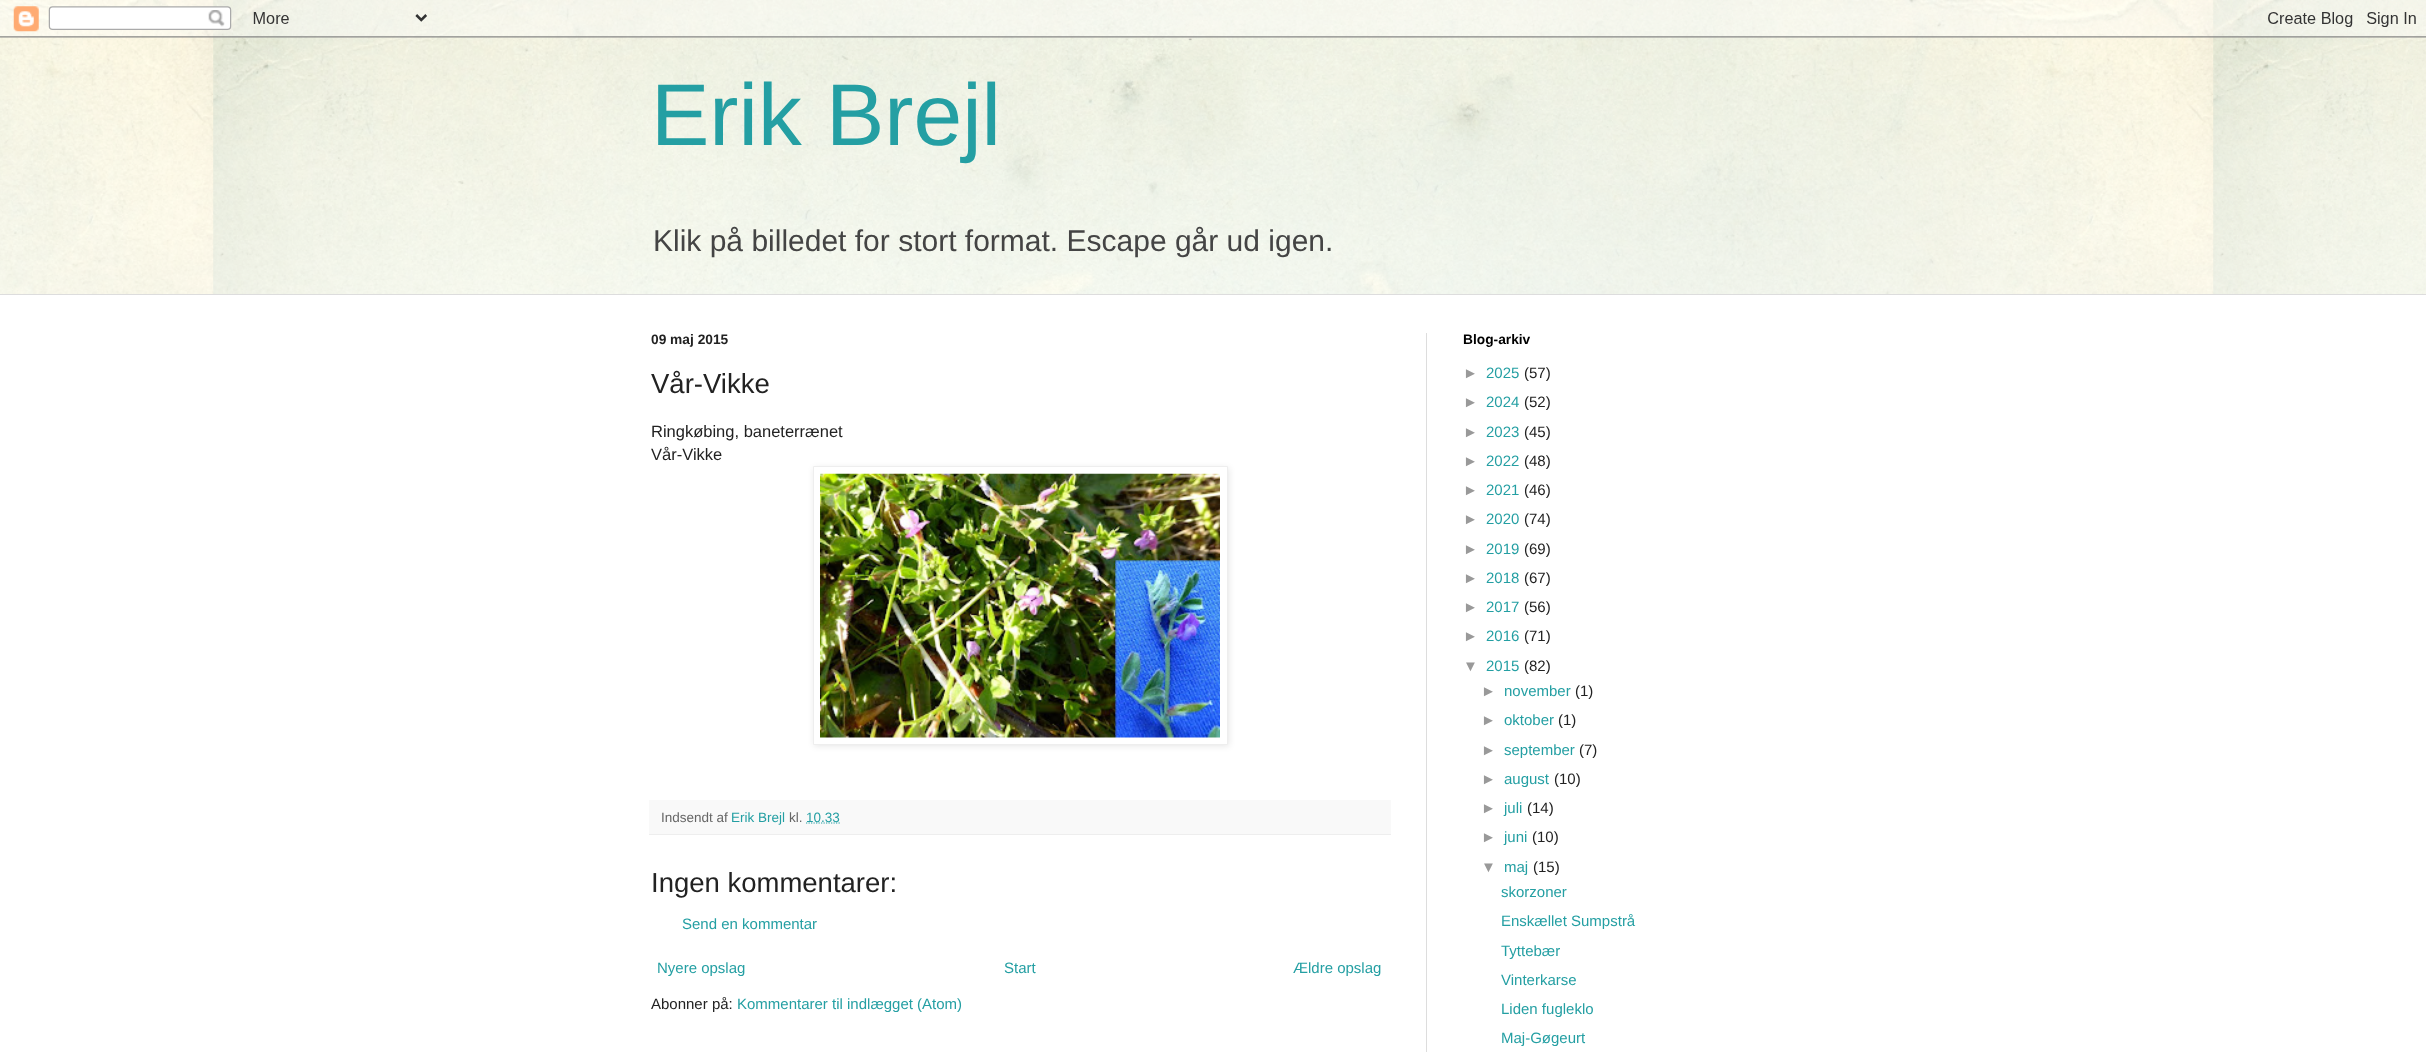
(async () => {
const canvas = document.querySelector("canvas")
canvas.width = 2426
canvas.height = 1052
const c = canvas.getContext("2d")
c.miterLimit = 4
c.fontKerning = "normal"
function T(s,x,y){c.fillText(s,x,y)}
function R(x,y,w,h){c.fillRect(x,y,w,h)}
async function I(src,x,y,w,h){const img=new Image();img.src=src;await img.decode();c.drawImage(img,x,y,w,h)}
let path
c.fillStyle="#fff"
R(0,0,2426,1052)
await I("1.png",0,0,2426,294)
await I("2.png",0,0,2426,294)
await I("3.png",0,0,2426,38)
c.font="87.5px Liberation Sans"
c.fillStyle="#249fa3"
T("Erik Brejl",651,145)
c.font="30px Liberation Sans"
c.fillStyle="#444"
T("Klik på billedet for stort format. Escape går ud igen.",653,251)
c.fillStyle="#ddd"
R(0,294,2426,1)
R(1426,333,1,719)
c.font="bold 13.75px Liberation Sans"
c.fillStyle="#222"
T("09 maj 2015",651,344)
c.font="27.5px Liberation Sans"
T("Vår-Vikke",651,393)
c.font="16.5px Liberation Sans"
T("Ringkøbing, baneterrænet",651,437)
T("Vår-Vikke",651,460)
c.fillStyle="#0000001a"
c.filter="blur(3px)"
c.beginPath()
c.rect(814,468,415,278)
c.fill()
c.filter="none"
c.fillStyle="#fff"
c.beginPath()
c.rect(813.5,466.5,414,278)
c.fill()
c.strokeStyle="#eee"
c.stroke()
await I("4.png",820,473,400,265)
c.fillStyle="#f9f9f9"
R(649,800,742,34)
c.fillStyle="#eee"
R(649,834,742,1)
c.font="13.5px Liberation Sans"
c.fillStyle="#666"
T("Indsendt af",661,822)
c.fillStyle="#249fa3"
T("Erik Brejl",731,822)
c.fillStyle="#666"
T("kl.",789,822)
path = new Path2D("M806 823h34")
c.strokeStyle="#249fa3"
c.lineWidth=1.2
c.setLineDash([1.25,1.25])
c.stroke(path)
c.fillStyle="#249fa3"
T("10.33",806,822)
c.font="27.5px Liberation Sans"
c.fillStyle="#222"
T("Ingen kommentarer:",651,892)
c.font="15px Liberation Sans"
c.fillStyle="#249fa3"
T("Send en kommentar",682,929)
T("Nyere opslag",657,973)
T("Start",1004,973)
T("Ældre opslag",1293,973)
c.fillStyle="#222"
T("Abonner på:",651,1009)
c.fillStyle="#249fa3"
T("Kommentarer til indlægget (Atom)",737,1009)
c.font="bold 13.75px Liberation Sans"
c.fillStyle="#000"
T("Blog-arkiv",1463,344)
c.font="15px Liberation Sans"
c.fillStyle="#999"
T("►",1463,378)
c.fillStyle="#249fa3"
T("2025",1486,378)
c.fillStyle="#222"
T("(57)",1524,378)
c.fillStyle="#999"
T("►",1463,407)
c.fillStyle="#249fa3"
T("2024",1486,407)
c.fillStyle="#222"
T("(52)",1524,407)
c.fillStyle="#999"
T("►",1463,437)
c.fillStyle="#249fa3"
T("2023",1486,437)
c.fillStyle="#222"
T("(45)",1524,437)
c.fillStyle="#999"
T("►",1463,466)
c.fillStyle="#249fa3"
T("2022",1486,466)
c.fillStyle="#222"
T("(48)",1524,466)
c.fillStyle="#999"
T("►",1463,495)
c.fillStyle="#249fa3"
T("2021",1486,495)
c.fillStyle="#222"
T("(46)",1524,495)
c.fillStyle="#999"
T("►",1463,524)
c.fillStyle="#249fa3"
T("2020",1486,524)
c.fillStyle="#222"
T("(74)",1524,524)
c.fillStyle="#999"
T("►",1463,554)
c.fillStyle="#249fa3"
T("2019",1486,554)
c.fillStyle="#222"
T("(69)",1524,554)
c.fillStyle="#999"
T("►",1463,583)
c.fillStyle="#249fa3"
T("2018",1486,583)
c.fillStyle="#222"
T("(67)",1524,583)
c.fillStyle="#999"
T("►",1463,612)
c.fillStyle="#249fa3"
T("2017",1486,612)
c.fillStyle="#222"
T("(56)",1524,612)
c.fillStyle="#999"
T("►",1463,641)
c.fillStyle="#249fa3"
T("2016",1486,641)
c.fillStyle="#222"
T("(71)",1524,641)
c.fillStyle="#999"
T("▼",1463,671)
c.fillStyle="#249fa3"
T("2015",1486,671)
c.fillStyle="#222"
T("(82)",1524,671)
c.fillStyle="#999"
T("►",1481,696)
c.fillStyle="#249fa3"
T("november",1504,696)
c.fillStyle="#222"
T("(1)",1575,696)
c.fillStyle="#999"
T("►",1481,725)
c.fillStyle="#249fa3"
T("oktober",1504,725)
c.fillStyle="#222"
T("(1)",1558,725)
c.fillStyle="#999"
T("►",1481,755)
c.fillStyle="#249fa3"
T("september",1504,755)
c.fillStyle="#222"
T("(7)",1579,755)
c.fillStyle="#999"
T("►",1481,784)
c.fillStyle="#249fa3"
T("august",1504,784)
c.fillStyle="#222"
T("(10)",1554,784)
c.fillStyle="#999"
T("►",1481,813)
c.fillStyle="#249fa3"
T("juli",1504,813)
c.fillStyle="#222"
T("(14)",1527,813)
c.fillStyle="#999"
T("►",1481,842)
c.fillStyle="#249fa3"
T("juni",1504,842)
c.fillStyle="#222"
T("(10)",1532,842)
c.fillStyle="#999"
T("▼",1481,872)
c.fillStyle="#249fa3"
T("maj",1504,872)
c.fillStyle="#222"
T("(15)",1533,872)
c.fillStyle="#249fa3"
T("skorzoner",1501,897)
T("Enskællet Sumpstrå",1501,926)
T("Tyttebær",1501,956)
T("Vinterkarse",1501,985)
T("Liden fugleklo",1501,1014)
T("Maj-Gøgeurt",1501,1043)
})()
